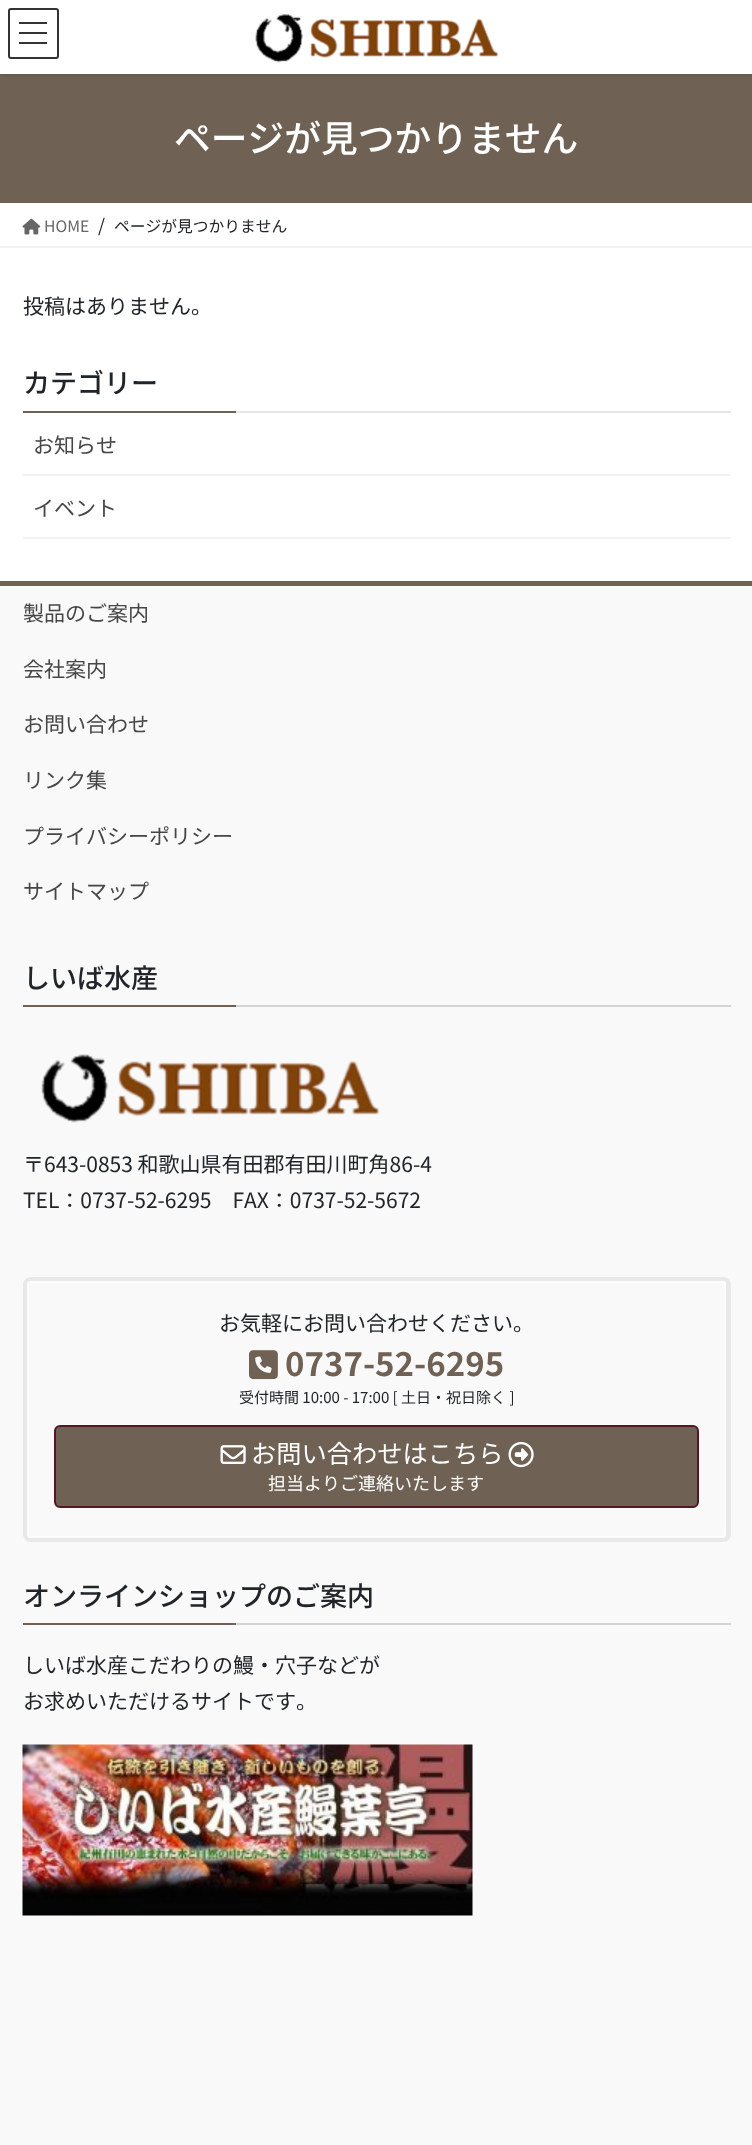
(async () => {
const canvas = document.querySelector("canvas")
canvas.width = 752
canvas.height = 2145
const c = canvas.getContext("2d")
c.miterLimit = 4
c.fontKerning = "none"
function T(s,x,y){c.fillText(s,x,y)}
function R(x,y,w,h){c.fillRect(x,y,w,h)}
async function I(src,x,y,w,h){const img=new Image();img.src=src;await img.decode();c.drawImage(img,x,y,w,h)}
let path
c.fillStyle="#fff"
R(0,0,752,2145)
c.fillStyle="#6f6154"
R(0,74,752,129)
c.fillStyle="#0000001a"
c.filter="blur(2px)"
c.beginPath()
c.rect(0,2,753,73)
c.fill()
c.filter="none"
c.fillStyle="#fff"
R(0,0,752,74)
await I("1.png",255,14,244,49)
c.fillStyle="#333"
R(19,22,28,2)
R(19,32,28,2)
R(19,42,28,2)
c.beginPath()
c.roundRect(9,9,49,49,2)
c.strokeStyle="#333"
c.lineWidth=2
c.stroke()
c.font="500 36.75px Noto Sans JP"
c.fillStyle="#fff"
T("ページが見つかりません",174,152)
c.fillStyle="#f2f2f2"
R(0,246,752,2)
await I("2.png",22,218,19,17)
c.font="15.75px Noto Sans JP"
c.fillStyle="#666"
T("HOME",44,232)
c.font="18px Noto Sans JP"
c.fillStyle="#212529"
T("/",98,232)
c.font="15.75px Noto Sans JP"
T("ページが見つかりません",114,232)
c.font="21px Noto Sans JP"
T("投稿はありません。",23,314)
c.fillStyle="#e6e6e6"
R(236,411,495,2)
c.font="500 27px Noto Sans JP"
c.fillStyle="#212529"
T("カテゴリー",23,393)
c.fillStyle="#6f6154"
R(23,411,213,2)
c.fillStyle="#f2f2f2"
R(23,474,708,2)
c.font="21px Noto Sans JP"
c.fillStyle="#464646"
T("お知らせ",33,453)
c.fillStyle="#f2f2f2"
R(23,537,708,2)
c.fillStyle="#464646"
T("イベント",33,516)
c.fillStyle="#f9f9f9"
R(0,586,752,1559)
c.fillStyle="#6f6154"
R(0,581,752,5)
c.fillStyle="#464646"
T("製品のご案内",23,621)
T("会社案内",23,677)
T("お問い合わせ",23,732)
T("リンク集",23,788)
T("プライバシーポリシー",23,844)
T("サイトマップ",23,899)
c.fillStyle="#d4d4d4"
R(236,1005,495,2)
c.font="500 27px Noto Sans JP"
c.fillStyle="#212529"
T("しいば水産",23,988)
c.fillStyle="#6f6154"
R(23,1005,213,2)
await I("3.png",41,1054,339,69)
c.font="21px Noto Sans JP"
c.fillStyle="#212529"
T("〒643-0853 和歌山県有田郡有田川町角86-4",23,1172)
T("TEL：0737-52-6295　FAX：0737-52-5672",23,1208)
c.beginPath()
c.roundRect(25.5,1279.5,703,260,5.5)
c.strokeStyle="#e8e8e8"
c.lineWidth=5
c.stroke()
c.fillStyle="#ffffffcc"
path = new Path2D("M30 1281c-2 0-3 1-3 3v251c0 2 1 3 3 3h693c2 0 3-1 3-3v-251c0-2-1-3-3-3zm-1 2v253h695v-253z")
c.fill(path,"evenodd")
c.fillStyle="#212529"
T("お気軽にお問い合わせください。",219,1331)
await I("4.png",249,1350,29,30)
c.font="bold 33px Noto Sans JP"
c.fillStyle="#6f6154"
T("0737-52-6295",285,1376)
c.font="15px Noto Sans JP"
c.fillStyle="#212529"
T("受付時間 10:00 - 17:00 [ 土日・祝日除く ]",239,1403)
c.fillStyle="#6f6154"
c.beginPath()
c.roundRect(55,1426,643,81,5)
c.fill()
c.strokeStyle="#511925"
c.lineWidth=2
c.stroke()
await I("5.png",220,1445,26,19)
c.font="25.25px Noto Sans JP"
c.fillStyle="#fff"
T("お問い合わせはこちら",251,1463)
await I("6.png",508,1441,26,27)
c.font="18px Noto Sans JP"
T("担当よりご連絡いたします",268,1490)
c.fillStyle="#d4d4d4"
R(236,1623,495,2)
c.font="500 27px Noto Sans JP"
c.fillStyle="#212529"
T("オンラインショップのご案内",23,1606)
c.fillStyle="#6f6154"
R(23,1623,213,2)
c.font="21px Noto Sans JP"
c.fillStyle="#212529"
T("しいば水産こだわりの鰻・穴子などが",23,1673)
T("お求めいただけるサイトです。",23,1709)
await I("7.png",22,1744,451,172)
})()
